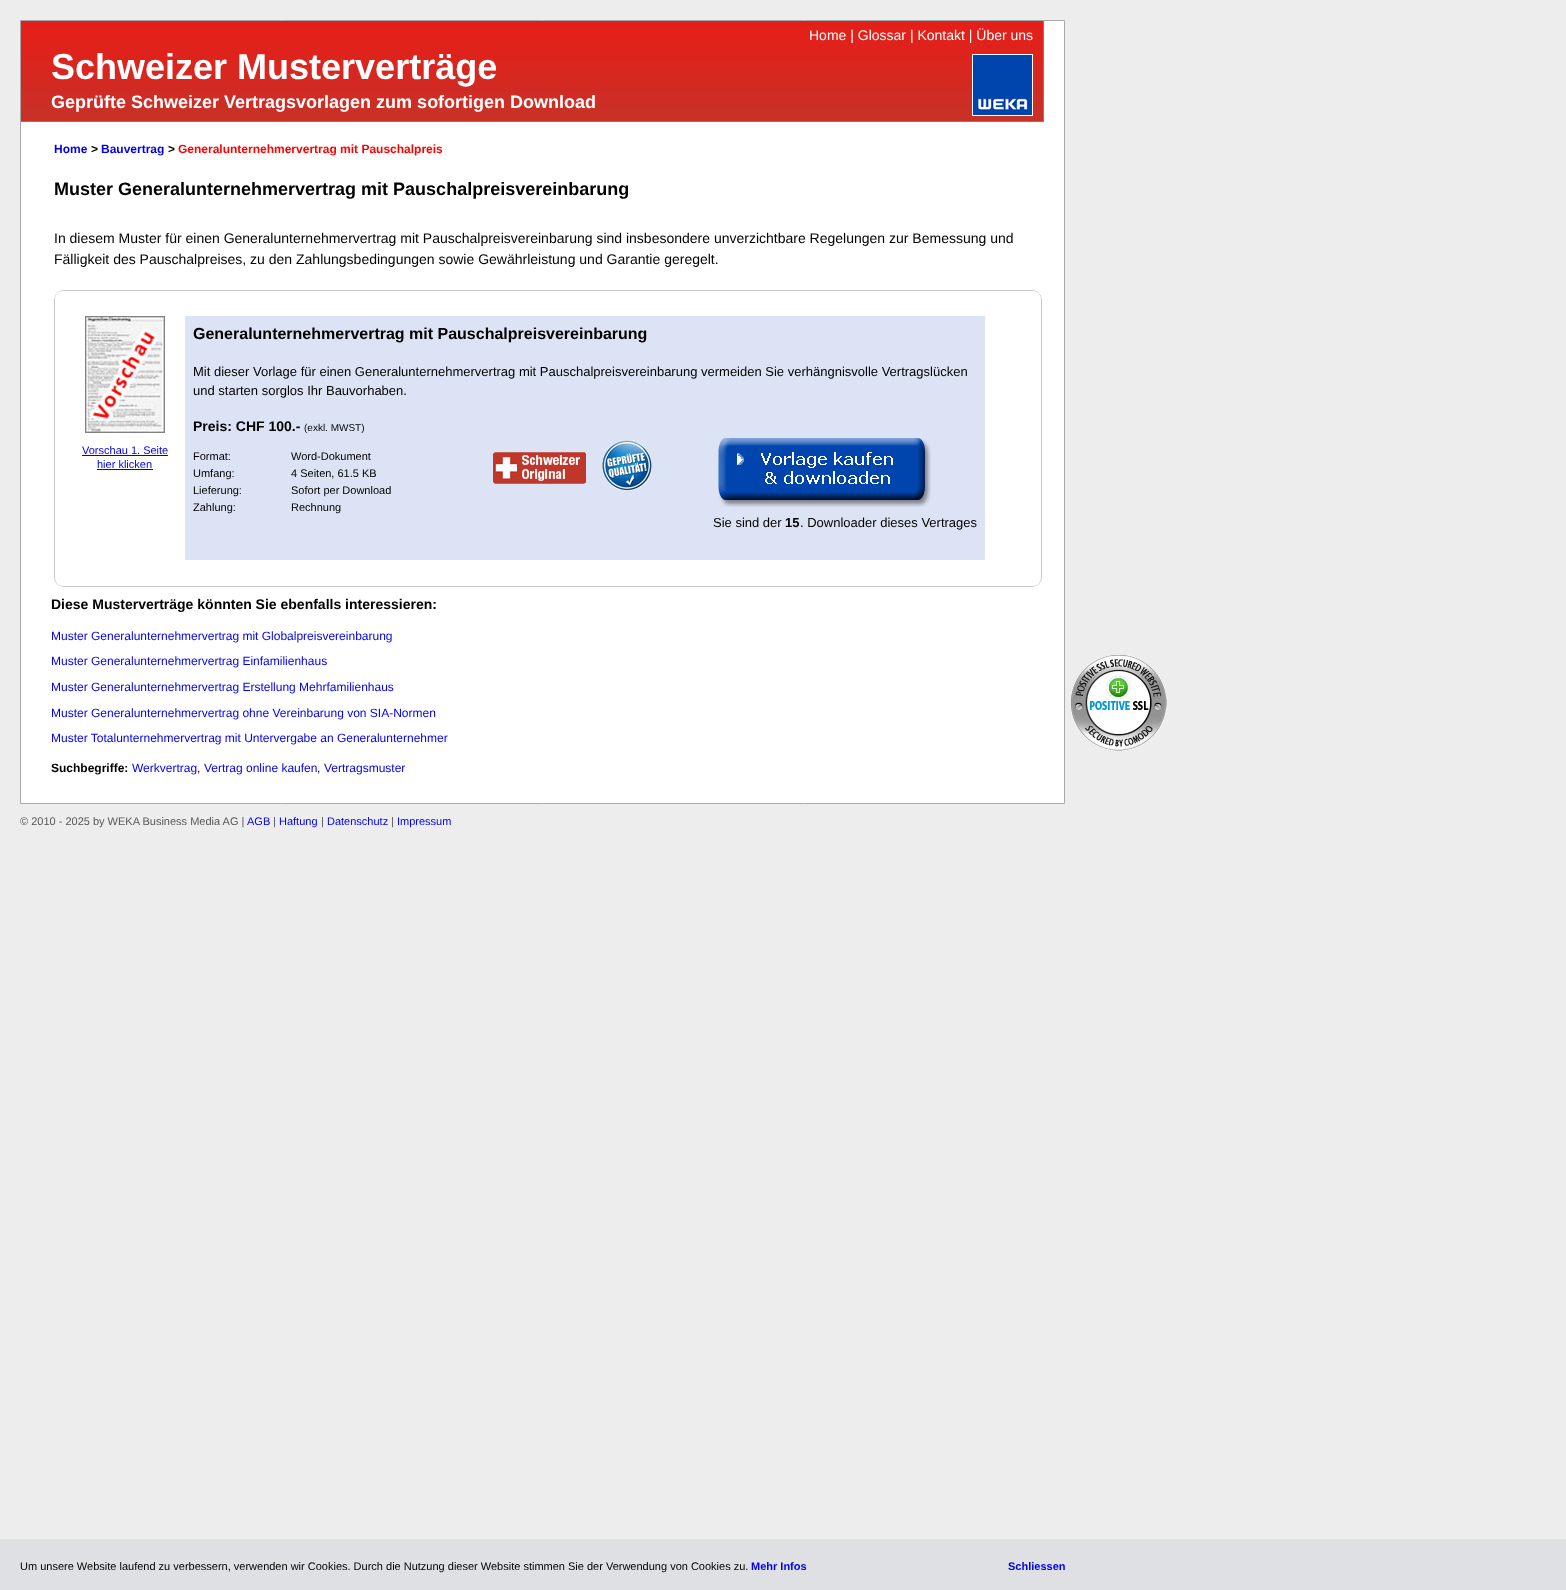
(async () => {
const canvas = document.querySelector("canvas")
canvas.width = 1566
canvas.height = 1590
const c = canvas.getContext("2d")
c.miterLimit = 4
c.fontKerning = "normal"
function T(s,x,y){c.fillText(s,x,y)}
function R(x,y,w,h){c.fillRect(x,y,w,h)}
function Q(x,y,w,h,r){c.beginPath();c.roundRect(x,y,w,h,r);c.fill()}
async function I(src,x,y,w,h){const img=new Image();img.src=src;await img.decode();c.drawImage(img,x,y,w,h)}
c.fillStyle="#ededed"
R(0,0,1566,1590)
c.fillStyle="#fff"
c.beginPath()
c.rect(20.5,20.5,1044,783)
c.fill()
c.strokeStyle="#a9a9a9"
c.stroke()
await I("1.png",21,21,1022,100)
c.fillStyle="#808080"
R(1043,21,1,101)
R(21,121,1023,1)
c.font="14px Liberation Sans"
c.fillStyle="#fff"
T("Home | Glossar | Kontakt | Über uns",809,40)
c.font="bold 36px Liberation Sans"
T("Schweizer Musterverträge",51,79)
c.font="bold 18px Liberation Sans"
T("Geprüfte Schweizer Vertragsvorlagen zum sofortigen Download",51,108)
await I("2.png",972,54,61,62)
c.font="bold 12px Liberation Sans"
c.fillStyle="#00e"
T("Home",54,153)
c.fillStyle="#000"
T(">",91,153)
c.fillStyle="#00e"
T("Bauvertrag",101,153)
c.fillStyle="#000"
T(">",168,153)
c.fillStyle="#f00"
T("Generalunternehmervertrag mit Pauschalpreis",178,153)
c.font="bold 18px Liberation Sans"
c.fillStyle="#000"
T("Muster Generalunternehmervertrag mit Pauschalpreisvereinbarung",54,195)
c.font="14px Liberation Sans"
T("In diesem Muster für einen Generalunternehmervertrag mit Pauschalpreisvereinbarung sind insbesondere unverzichtbare Regelungen zur Bemessung und",54,243)
T("Fälligkeit des Pauschalpreises, zu den Zahlungsbedingungen sowie Gewährleistung und Garantie geregelt.",54,264)
c.fillStyle="#c9c7c7"
Q(54,290,988,297,10)
c.fillStyle="#fff"
Q(55,291,986,295,8)
await I("3.png",85,316,80,117)
c.font="11px Liberation Sans"
c.fillStyle="#00e"
T("Vorschau 1. Seite",82,454)
R(82,455,86,1)
T("hier klicken",97,468)
R(97,469,56,1)
c.fillStyle="#dce3f5"
R(185,316,800,244)
c.font="bold 16px Liberation Sans"
c.fillStyle="#000"
T("Generalunternehmervertrag mit Pauschalpreisvereinbarung",193,339)
c.font="13px Liberation Sans"
T("Mit dieser Vorlage für einen Generalunternehmervertrag mit Pauschalpreisvereinbarung vermeiden Sie verhängnisvolle Vertragslücken",193,376)
T("und starten sorglos Ihr Bauvorhaben.",193,395)
c.font="bold 14px Liberation Sans"
T("Preis: CHF 100.-",193,431)
c.font="10px Liberation Sans"
T("(exkl. MWST)",304,431)
c.font="11px Liberation Sans"
T("Format:",193,460)
T("Word-Dokument",291,460)
T("Umfang:",193,477)
T("4 Seiten, 61.5 KB",291,477)
T("Lieferung:",193,494)
T("Sofort per Download",291,494)
T("Zahlung:",193,511)
T("Rechnung",291,511)
await I("4.png",493,452,93,32)
await I("5.png",602,440,50,51)
await I("6.png",718,438,213,69)
c.font="13px Liberation Sans"
T("Sie sind der",713,527)
c.font="bold 13px Liberation Sans"
T("15",785,527)
c.font="13px Liberation Sans"
T(". Downloader dieses Vertrages",800,527)
c.font="bold 14px Liberation Sans"
T("Diese Musterverträge könnten Sie ebenfalls interessieren:",51,609)
c.font="12px Liberation Sans"
c.fillStyle="#00e"
T("Muster Generalunternehmervertrag mit Globalpreisvereinbarung",51,640)
T("Muster Generalunternehmervertrag Einfamilienhaus",51,665)
T("Muster Generalunternehmervertrag Erstellung Mehrfamilienhaus",51,691)
T("Muster Generalunternehmervertrag ohne Vereinbarung von SIA-Normen",51,717)
T("Muster Totalunternehmervertrag mit Untervergabe an Generalunternehmer",51,742)
c.font="bold 12px Liberation Sans"
c.fillStyle="#000"
T("Suchbegriffe:",51,772)
c.font="12px Liberation Sans"
c.fillStyle="#00e"
T("Werkvertrag",132,772)
c.fillStyle="#000"
T(",",197,772)
c.fillStyle="#00e"
T("Vertrag online kaufen",204,772)
c.fillStyle="#000"
T(",",317,772)
c.fillStyle="#00e"
T("Vertragsmuster",324,772)
await I("7.png",1071,655,96,96)
c.font="11px Liberation Sans"
c.fillStyle="#5a5757"
T("© 2010 - 2025 by WEKA Business Media AG |",20,825)
c.fillStyle="#00e"
T("AGB",247,825)
c.fillStyle="#5a5757"
T("|",273,825)
c.fillStyle="#00e"
T("Haftung",279,825)
c.fillStyle="#5a5757"
T("|",321,825)
c.fillStyle="#00e"
T("Datenschutz",327,825)
c.fillStyle="#5a5757"
T("|",391,825)
c.fillStyle="#00e"
T("Impressum",397,825)
c.fillStyle="#dfe0e3"
R(0,1539,1566,51)
c.fillStyle="#000"
T("Um unsere Website laufend zu verbessern, verwenden wir Cookies. Durch die Nutzung dieser Website stimmen Sie der Verwendung von Cookies zu.",20,1570)
c.font="bold 11px Liberation Sans"
c.fillStyle="#00e"
T("Mehr Infos",751,1570)
T("Schliessen",1008,1570)
})()
